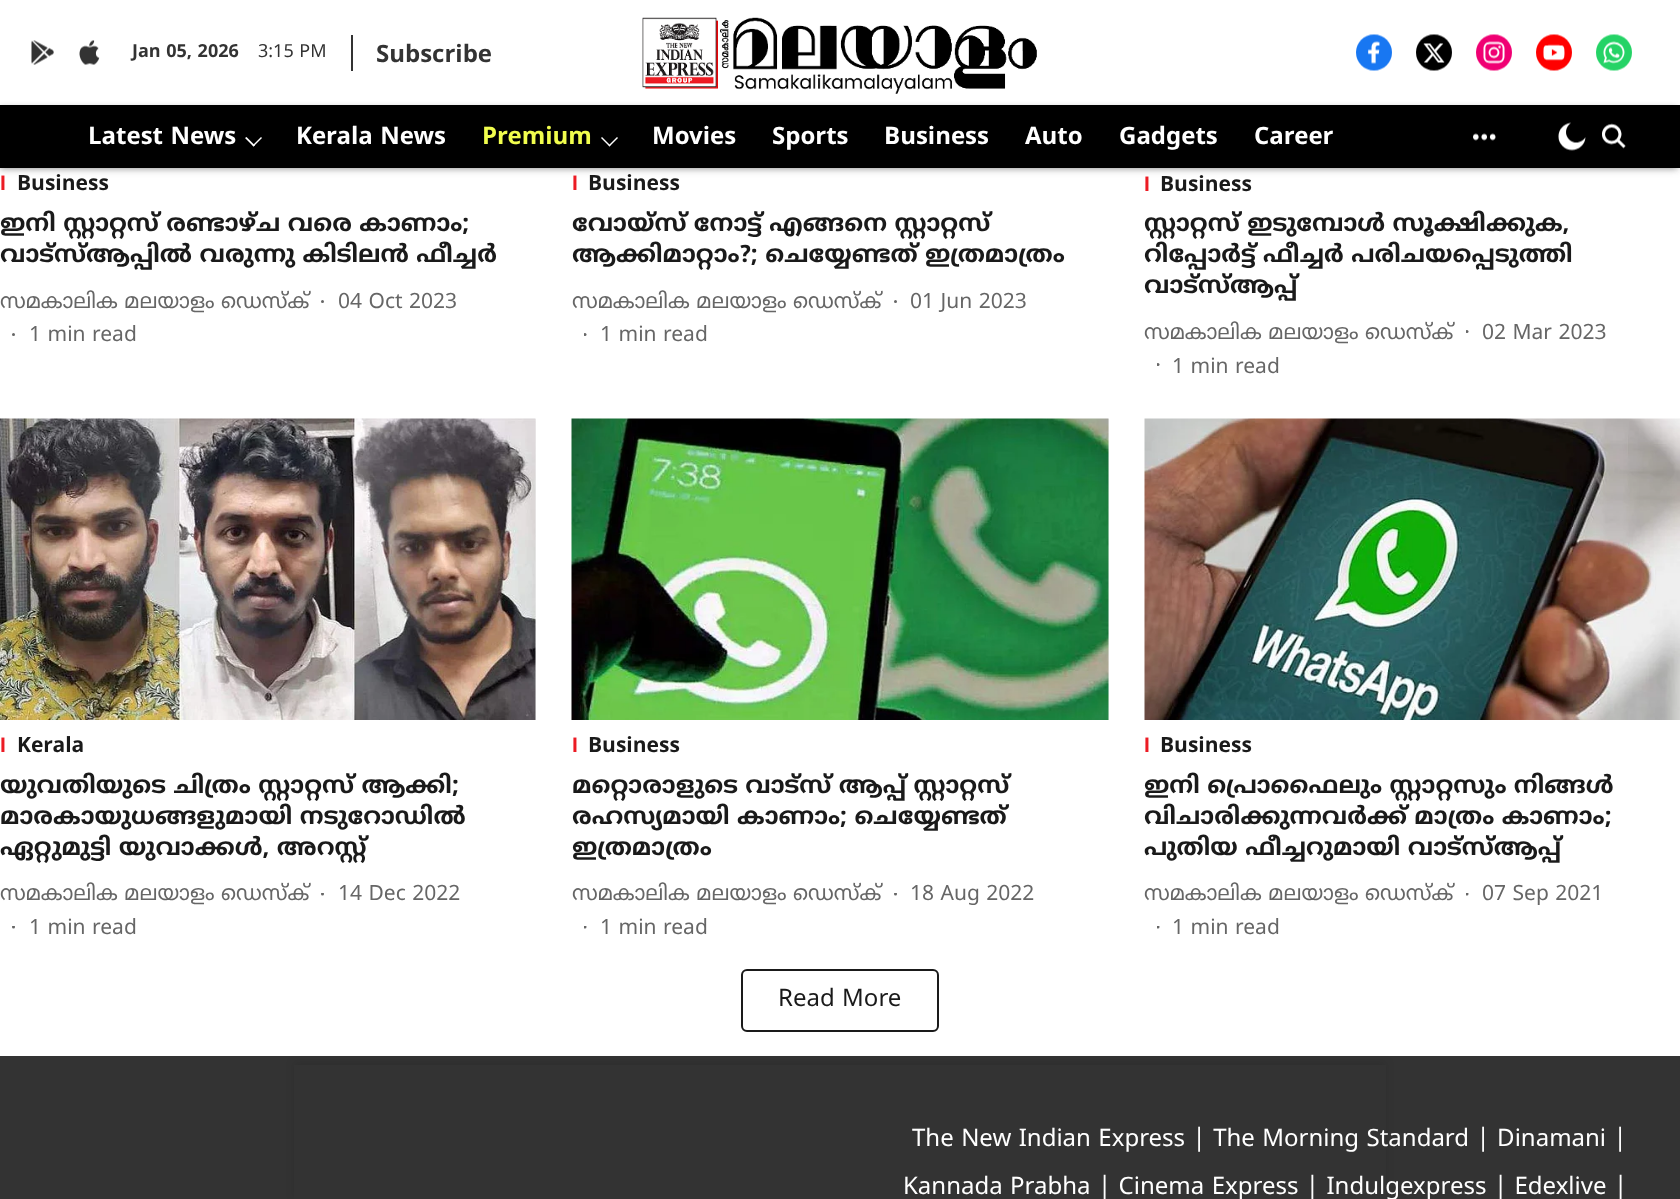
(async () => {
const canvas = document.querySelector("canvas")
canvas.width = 1680
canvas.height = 1199
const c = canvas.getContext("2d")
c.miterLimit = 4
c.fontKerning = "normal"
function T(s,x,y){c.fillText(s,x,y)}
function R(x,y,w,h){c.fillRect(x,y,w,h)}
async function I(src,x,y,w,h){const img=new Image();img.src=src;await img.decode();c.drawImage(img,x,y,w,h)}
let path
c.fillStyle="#fff"
R(0,0,1680,1199)
c.fillStyle="#0000001a"
c.filter="blur(4.5px)"
c.beginPath()
c.rect(0,2,1680,168)
c.fill()
c.filter="none"
c.fillStyle="#fff"
R(0,0,1680,105)
await I("1.png",31,40,23,25)
await I("2.png",79,40,21,25)
c.font="bold 18px Noto Sans Malayalam"
c.fillStyle="#333"
T("Jan 05, 2026",132,57)
c.font="18px Noto Sans Malayalam"
T("3:15 PM",258,57)
R(351,35,2,36)
c.font="bold 24px Noto Sans Malayalam"
T("Subscribe",376,62)
await I("3.png",642,17,395,77)
await I("4.png",1356,34,36,37)
await I("5.png",1416,34,36,37)
await I("6.png",1476,34,36,37)
await I("7.png",1536,34,36,37)
await I("8.png",1596,34,36,37)
c.fillStyle="#00000063"
c.filter="blur(3px)"
c.beginPath()
c.rect(0,108,1677,60)
c.fill()
c.filter="none"
c.fillStyle="#000"
R(0,105,1680,63)
c.fillStyle="#fff"
T("Latest News",88,144)
path = new Path2D("M261 137l1 1l-8.5 8.5l-1-1z")
c.fill(path)
path = new Path2D("M246.5 137l8.5 8.5l-1.5 1l-8.5-8.5z")
c.fill(path)
T("Kerala News",296,144)
c.fillStyle="#f1fd4d"
T("Premium",482,144)
c.fillStyle="#fff"
path = new Path2D("M617 137l1 1l-8.5 8.5l-1-1z")
c.fill(path)
path = new Path2D("M602 137l8.5 8.5l-1 1l-8.5-8.5z")
c.fill(path)
T("Movies",652,144)
T("Sports",772,144)
T("Business",884,144)
T("Auto",1025,144)
T("Gadgets",1119,144)
T("Career",1254,144)
await I("9.png",1473,133,23,8)
await I("10.png",1558,122,28,29)
await I("11.png",1602,123,24,26)
c.font="bold 21px Liberation Sans"
c.fillStyle="#ec1b24"
T("I",0,190)
c.font="bold 21px Noto Sans Malayalam"
c.fillStyle="#1a1a1a"
T("Business",17,190)
c.font="bold 24px Noto Sans Malayalam"
T("ഇനി സ്റ്റാറ്റസ് രണ്ടാഴ്ച വരെ കാണാം;",0,231)
T("വാട്‌സ്ആപ്പില്‍ വരുന്നു കിടിലന്‍ ഫീച്ചര്‍",0,262)
c.font="21px Noto Sans Malayalam"
c.fillStyle="#666"
T("സമകാലിക മലയാളം ഡെസ്ക്",0,308)
c.beginPath()
c.arc(322.5,301.5,1.5,0,7)
c.fill()
T("04 Oct 2023",338,308)
c.beginPath()
c.arc(13.5,334.5,1.5,0,7)
c.fill()
T("1 min read",29,341)
c.font="bold 21px Liberation Sans"
c.fillStyle="#ec1b24"
T("I",572,190)
c.font="bold 21px Noto Sans Malayalam"
c.fillStyle="#1a1a1a"
T("Business",588,190)
c.font="bold 24px Noto Sans Malayalam"
T("വോയ്‌സ് നോട്ട് എങ്ങനെ സ്റ്റാറ്റസ്",572,231)
T("ആക്കിമാറ്റാം?; ചെയ്യേണ്ടത് ഇത്രമാത്രം",572,262)
c.font="21px Noto Sans Malayalam"
c.fillStyle="#666"
T("സമകാലിക മലയാളം ഡെസ്ക്",572,308)
c.beginPath()
c.arc(895.5,301.5,1.5,0,7)
c.fill()
T("01 Jun 2023",910,308)
c.save()
c.beginPath()
c.rect(584,333,5,5)
c.clip()
c.beginPath()
c.arc(585,334.5,1.5,0,7)
c.fill()
c.restore()
T("1 min read",600,341)
c.font="bold 21px Liberation Sans"
c.fillStyle="#ec1b24"
T("I",1144,191)
c.font="bold 21px Noto Sans Malayalam"
c.fillStyle="#1a1a1a"
T("Business",1160,191)
c.font="bold 24px Noto Sans Malayalam"
T("സ്റ്റാറ്റസ് ഇടുമ്പോൾ സൂക്ഷിക്കുക,",1144,231)
T("റിപ്പോർട്ട് ഫീച്ചർ പരിചയപ്പെടുത്തി",1144,262)
T("വാട്സ്ആപ്പ്",1144,293)
c.font="21px Noto Sans Malayalam"
c.fillStyle="#666"
T("സമകാലിക മലയാളം ഡെസ്ക്",1144,339)
c.save()
c.beginPath()
c.rect(1466,330,5,5)
c.clip()
c.beginPath()
c.arc(1467,331.5,1.5,0,7)
c.fill()
c.restore()
T("02 Mar 2023",1482,339)
c.save()
c.beginPath()
c.rect(1157,363,5,5)
c.clip()
c.beginPath()
c.arc(1158,364.5,1.5,0,7)
c.fill()
c.restore()
T("1 min read",1172,373)
c.fillStyle="#f0f0f0"
R(535,419,1,301)
await I("12.png",0,418,536,302)
c.font="bold 21px Liberation Sans"
c.fillStyle="#ec1b24"
T("I",0,752)
c.font="bold 21px Noto Sans Malayalam"
c.fillStyle="#1a1a1a"
T("Kerala",17,752)
c.font="bold 24px Noto Sans Malayalam"
T("യുവതിയുടെ ചിത്രം സ്റ്റാറ്റസ് ആക്കി;",0,793)
T("മാരകായുധങ്ങളുമായി നടുറോഡില്‍",0,824)
T("ഏറ്റുമുട്ടി യുവാക്കള്‍, അറസ്റ്റ്",0,855)
c.font="21px Noto Sans Malayalam"
c.fillStyle="#666"
T("സമകാലിക മലയാളം ഡെസ്ക്",0,900)
c.save()
c.beginPath()
c.rect(321,893,5,5)
c.clip()
c.beginPath()
c.arc(322.5,894,1.5,0,7)
c.fill()
c.restore()
T("14 Dec 2022",338,900)
c.save()
c.beginPath()
c.rect(12,926,5,5)
c.clip()
c.beginPath()
c.arc(13.5,927,1.5,0,7)
c.fill()
c.restore()
T("1 min read",29,934)
c.fillStyle="#f0f0f0"
R(1108,419,1,301)
await I("13.png",571,418,538,302)
c.font="bold 21px Liberation Sans"
c.fillStyle="#ec1b24"
T("I",572,752)
c.font="bold 21px Noto Sans Malayalam"
c.fillStyle="#1a1a1a"
T("Business",588,752)
c.font="bold 24px Noto Sans Malayalam"
T("മറ്റൊരാളുടെ വാട്‌സ് ആപ്പ് സ്റ്റാറ്റസ്",572,793)
T("രഹസ്യമായി കാണാം; ചെയ്യേണ്ടത്",572,824)
T("ഇത്രമാത്രം",572,855)
c.font="21px Noto Sans Malayalam"
c.fillStyle="#666"
T("സമകാലിക മലയാളം ഡെസ്ക്",572,900)
c.save()
c.beginPath()
c.rect(894,893,5,5)
c.clip()
c.beginPath()
c.arc(895.5,894,1.5,0,7)
c.fill()
c.restore()
T("18 Aug 2022",910,900)
c.save()
c.beginPath()
c.rect(584,926,5,5)
c.clip()
c.beginPath()
c.arc(585,927,1.5,0,7)
c.fill()
c.restore()
T("1 min read",600,934)
await I("14.png",1144,418,536,302)
c.font="bold 21px Liberation Sans"
c.fillStyle="#ec1b24"
T("I",1144,752)
c.font="bold 21px Noto Sans Malayalam"
c.fillStyle="#1a1a1a"
T("Business",1160,752)
c.font="bold 24px Noto Sans Malayalam"
T("ഇനി പ്രൊഫൈലും സ്റ്റാറ്റസും നിങ്ങള്‍",1144,793)
T("വിചാരിക്കുന്നവര്‍ക്ക് മാത്രം കാണാം;",1144,824)
T("പുതിയ ഫീച്ചറുമായി വാട്‌സ്ആപ്പ്",1144,855)
c.font="21px Noto Sans Malayalam"
c.fillStyle="#666"
T("സമകാലിക മലയാളം ഡെസ്ക്",1144,900)
c.save()
c.beginPath()
c.rect(1466,893,5,5)
c.clip()
c.beginPath()
c.arc(1467,894,1.5,0,7)
c.fill()
c.restore()
T("07 Sep 2021",1482,900)
c.save()
c.beginPath()
c.rect(1157,926,5,5)
c.clip()
c.beginPath()
c.arc(1158,927,1.5,0,7)
c.fill()
c.restore()
T("1 min read",1172,934)
c.beginPath()
c.roundRect(742,970,196,61,5)
c.strokeStyle="#1a1a1a"
c.lineWidth=2
c.stroke()
c.font="24px Noto Sans Malayalam"
c.fillStyle="#1a1a1a"
T("Read More",778,1006)
c.fillStyle="#333"
R(0,1056,1680,143)
c.save()
path = new Path2D("M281 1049h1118v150h-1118zm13 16h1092v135h-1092z")
c.clip(path,"evenodd")
c.fillStyle="#0000001a"
c.filter="blur(4px)"
c.beginPath()
c.rect(294,1062,1092,135)
c.fill()
c.filter="none"
c.restore()
c.fillStyle="#fff"
T("The New Indian Express | The Morning Standard | Dinamani |",912,1146)
T("Kannada Prabha | Cinema Express | Indulgexpress | Edexlive |",903,1194)
})()
